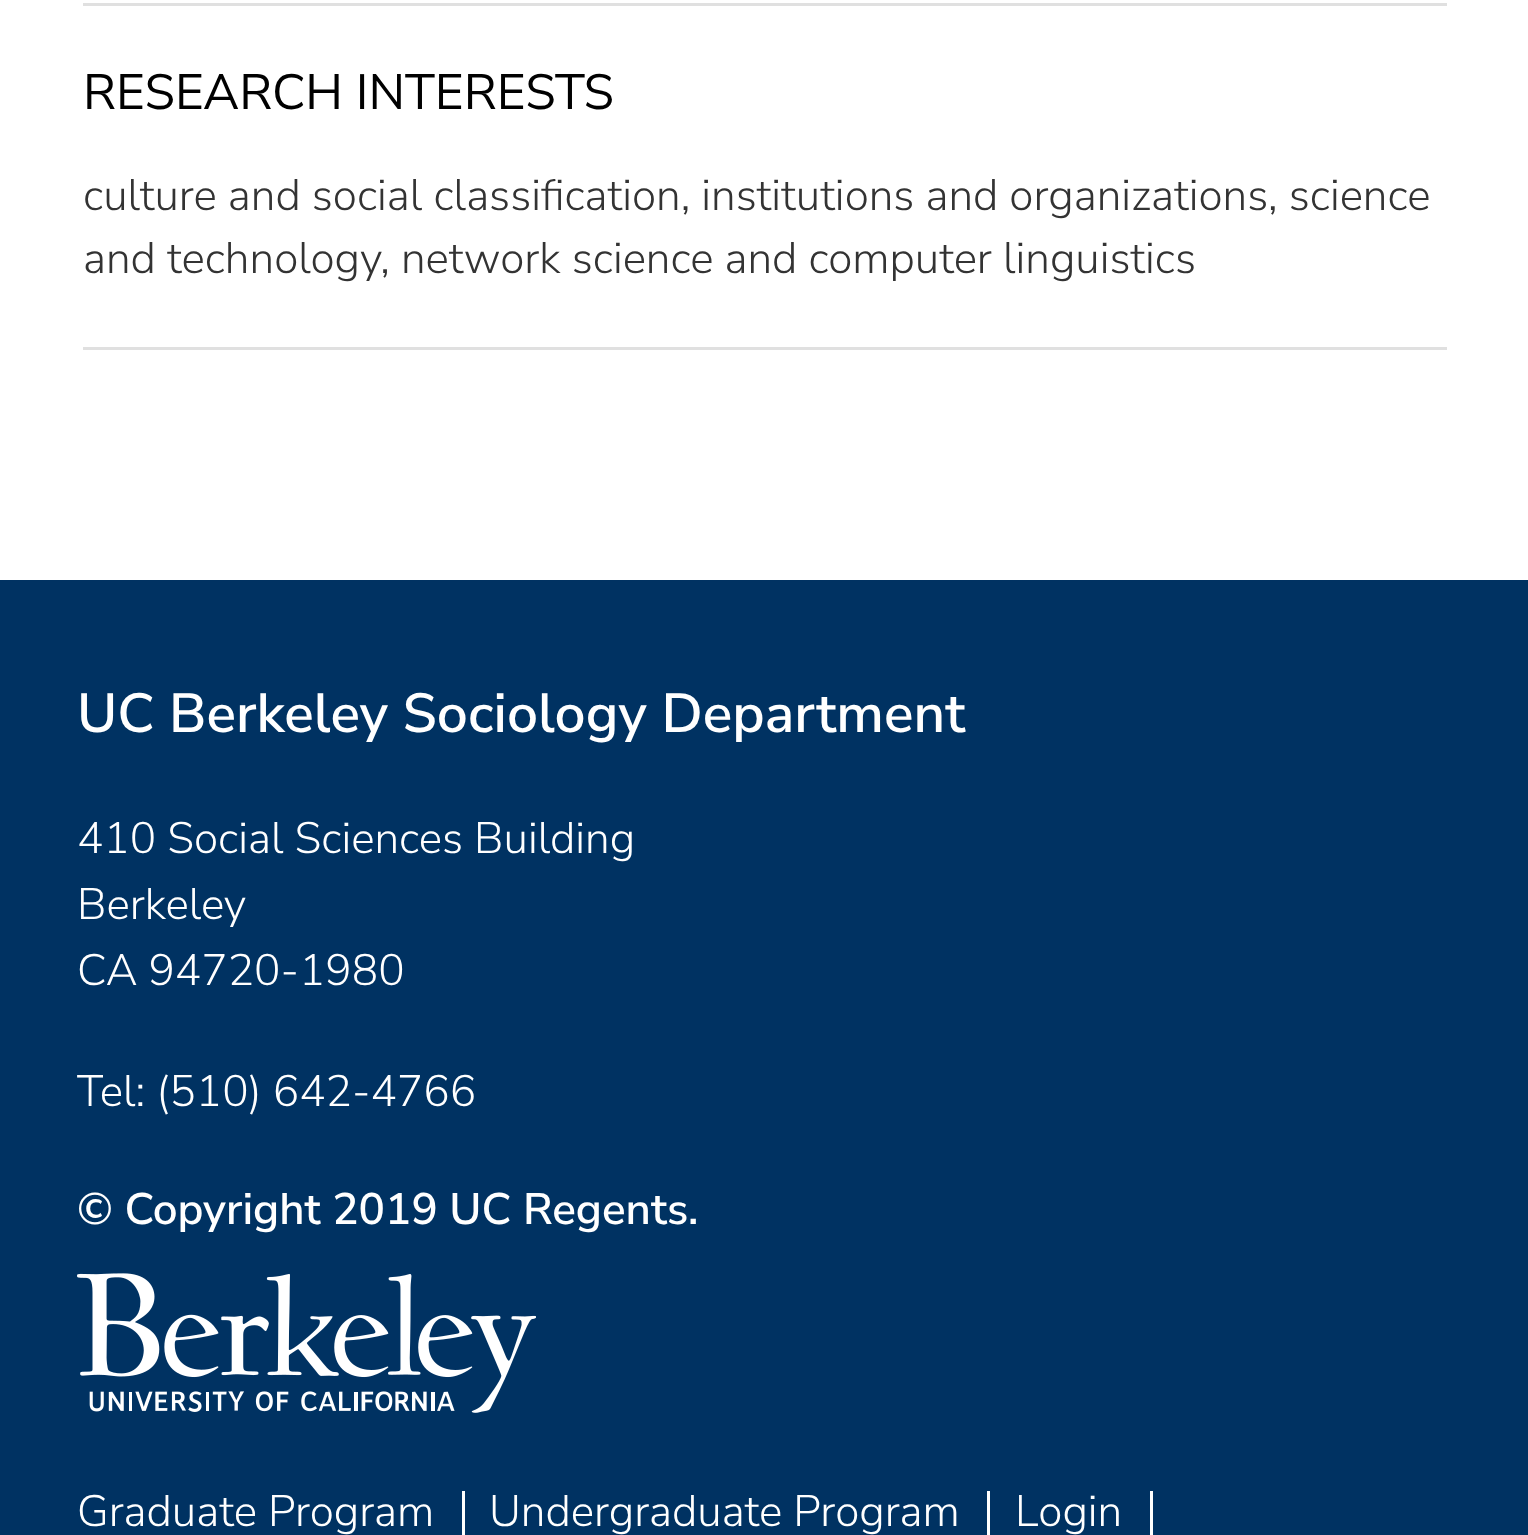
(async () => {
const canvas = document.querySelector("canvas")
canvas.width = 1528
canvas.height = 1535
const c = canvas.getContext("2d")
c.miterLimit = 4
c.fontKerning = "normal"
function T(s,x,y){c.fillText(s,x,y)}
function R(x,y,w,h){c.fillRect(x,y,w,h)}
async function I(src,x,y,w,h){const img=new Image();img.src=src;await img.decode();c.drawImage(img,x,y,w,h)}
c.fillStyle="#fff"
R(0,0,1528,1535)
c.fillStyle="#e0e0e0"
R(83,3,1364,3)
R(83,347,1364,3)
c.font="49.5px Nunito Sans"
c.fillStyle="#000"
T("RESEARCH INTERESTS",83,109)
c.font="300 44px Nunito Sans"
c.fillStyle="#333"
T("culture and social classification, institutions and organizations, science",83,210)
T("and technology, network science and computer linguistics",83,273)
c.fillStyle="#003262"
R(0,580,1528,955)
c.font="600 55px Nunito Sans"
c.fillStyle="#fff"
T("UC Berkeley Sociology Department",77,732)
c.font="300 44px Nunito Sans"
T("410 Social Sciences Building",77,853)
T("Berkeley",77,919)
T("CA 94720-1980",77,985)
T("Tel: (510) 642-4766",77,1106)
c.font="600 44px Nunito Sans"
T("© Copyright 2019 UC Regents.",77,1224)
await I("1.png",77,1273,459,140)
R(462,1491,3,44)
c.font="300 44px Nunito Sans"
T("Graduate Program",77,1526)
R(987,1491,3,44)
T("Undergraduate Program",489,1526)
R(1150,1491,3,44)
T("Login",1015,1526)
})()
